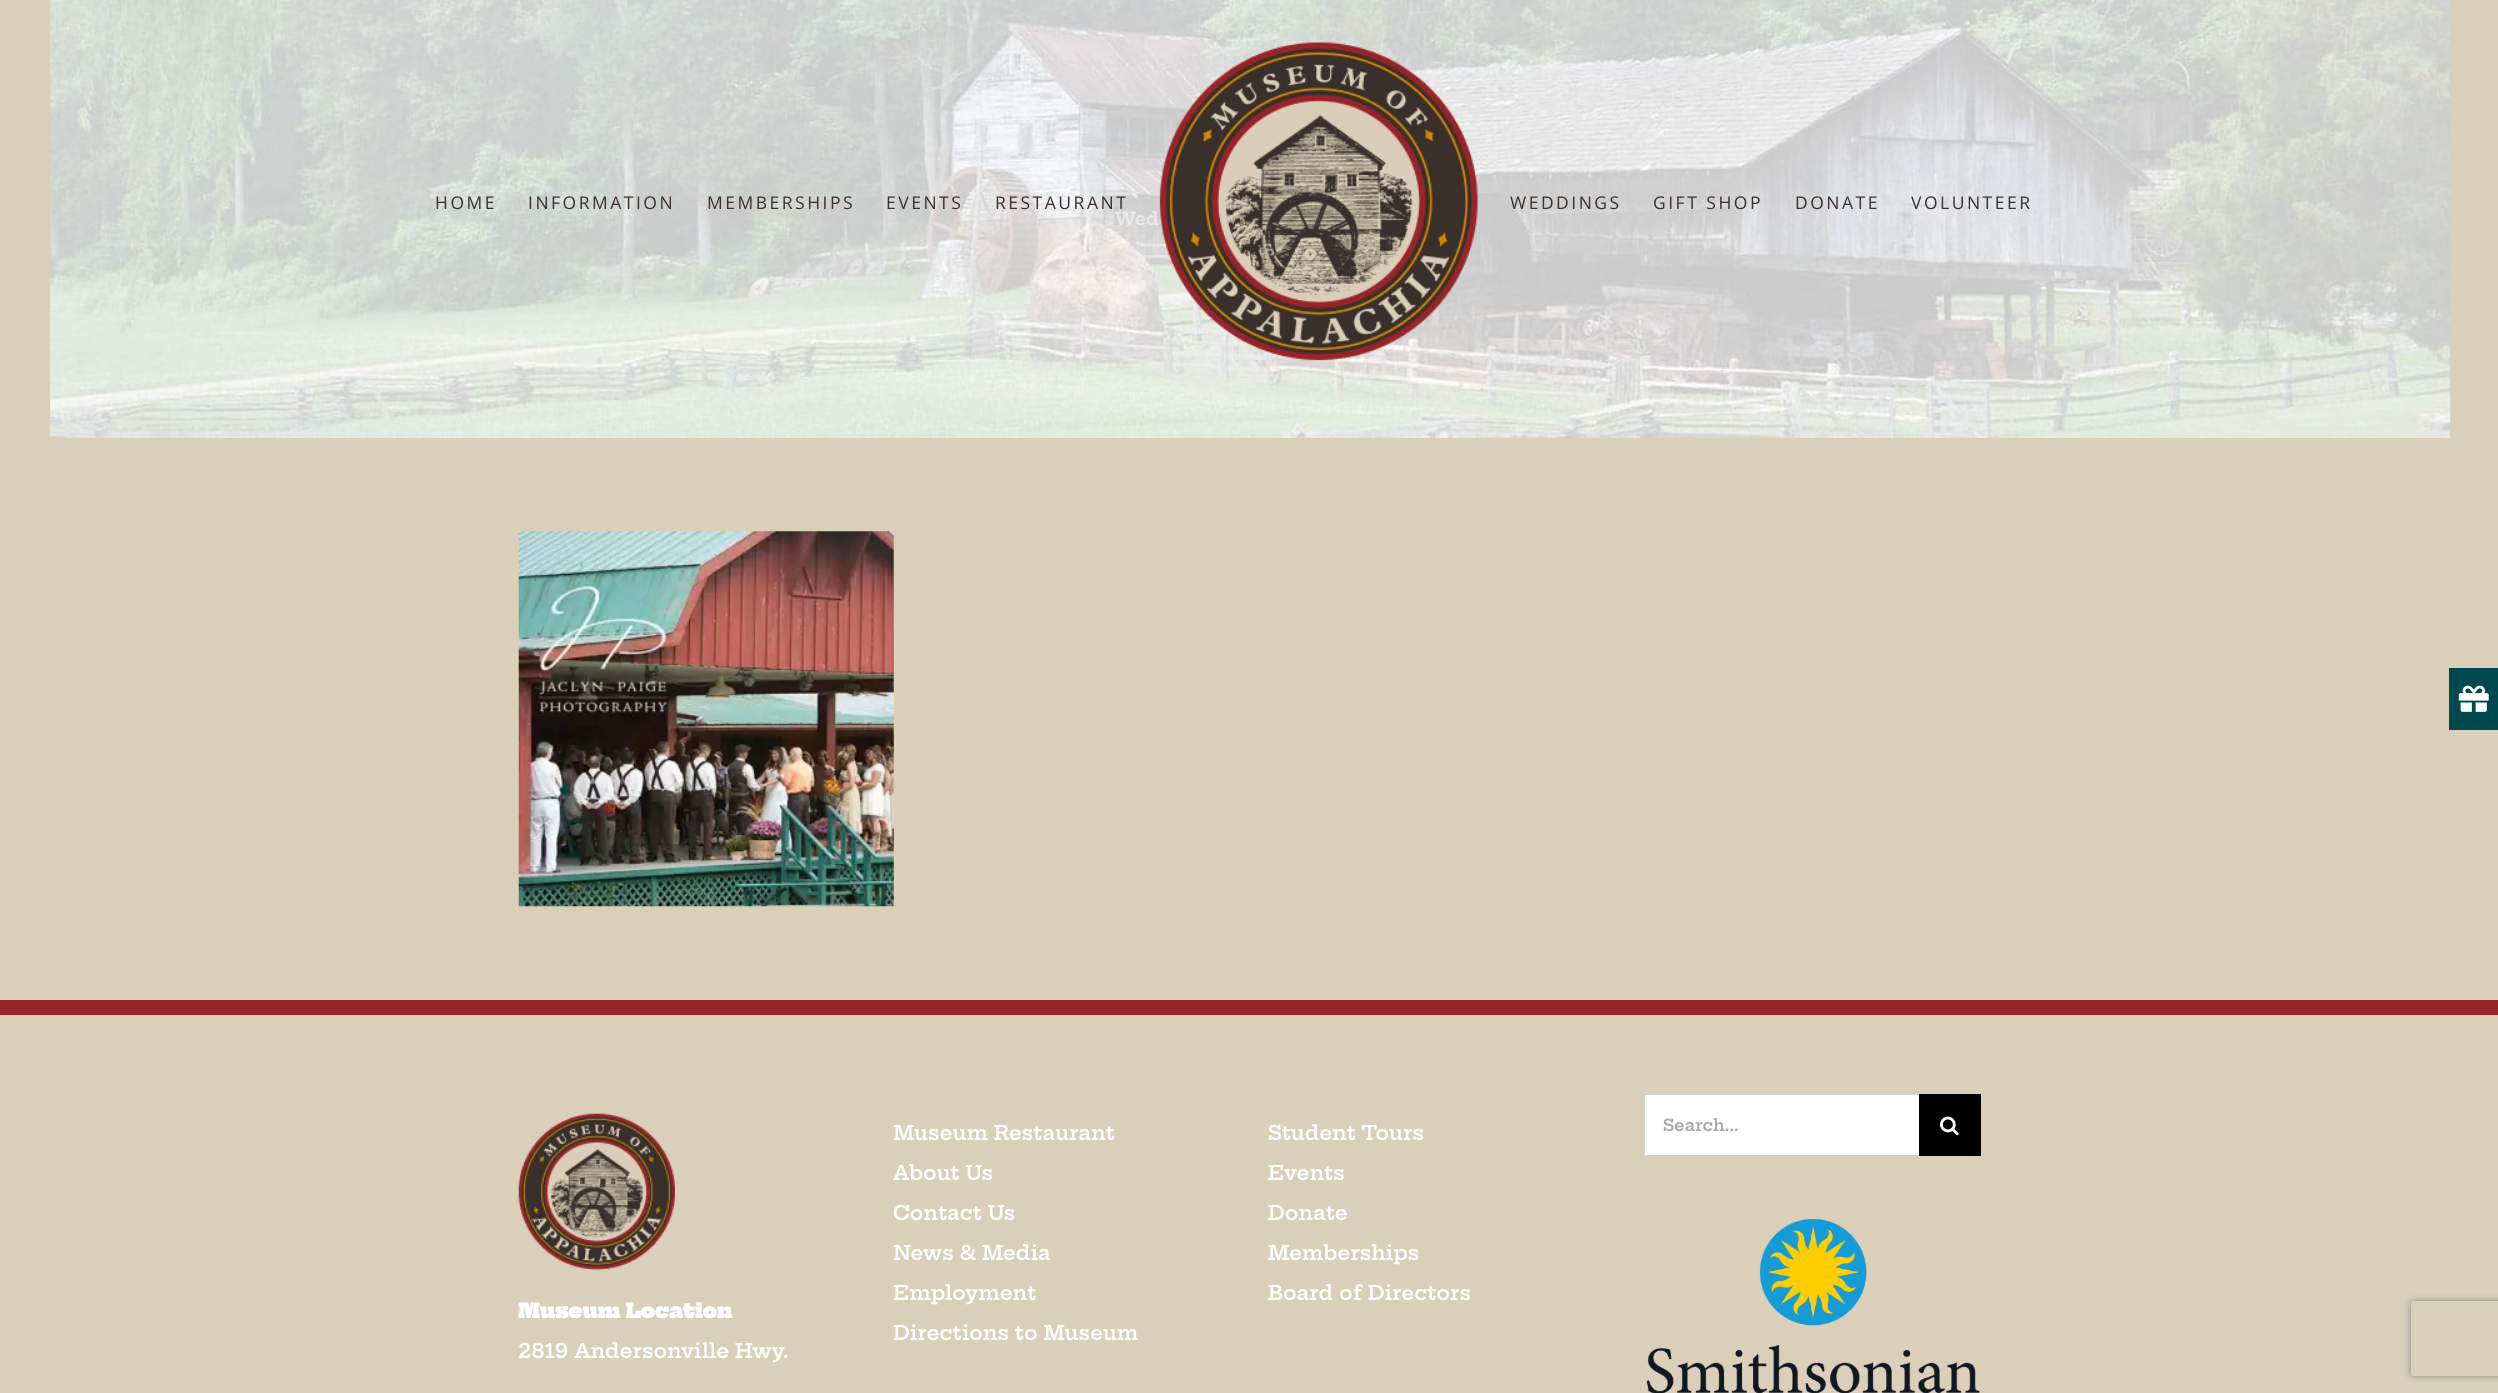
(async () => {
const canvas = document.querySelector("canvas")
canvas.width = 2498
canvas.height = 1393
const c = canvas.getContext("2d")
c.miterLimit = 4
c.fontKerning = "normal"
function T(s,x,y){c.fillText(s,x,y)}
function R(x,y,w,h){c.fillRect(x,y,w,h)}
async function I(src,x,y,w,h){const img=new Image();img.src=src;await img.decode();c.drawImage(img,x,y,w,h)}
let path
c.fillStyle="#dacfb9"
R(0,0,2498,1393)
await I("2.png",49,0,2402,438)
c.letterSpacing="2.5px"
c.font="17.5px Open Sans"
c.fillStyle="#392f2b"
T("HOME",435,209)
T("INFORMATION",528,209)
T("MEMBERSHIPS",707,209)
T("EVENTS",886,209)
T("RESTAURANT",995,209)
await I("1.png",1159,42,319,319)
T("WEDDINGS",1510,209)
T("GIFT SHOP",1653,209)
T("DONATE",1795,209)
T("VOLUNTEER",1911,209)
c.letterSpacing="0px"
c.font="600 17.5px Hepta Slab"
c.fillStyle="#eaeaea"
T("Wed",1115,225)
await I("3.png",518,531,376,376)
c.fillStyle="#98242a"
R(0,1000,2498,15)
c.font="600 20px Hepta Slab"
c.fillStyle="#fff"
T("Museum Restaurant",893,1140)
T("About Us",893,1180)
T("Contact Us",893,1220)
T("News & Media",893,1260)
T("Employment",893,1300)
T("Directions to Museum",893,1340)
T("Student Tours",1268,1140)
T("Events",1268,1180)
T("Donate",1268,1220)
T("Memberships",1268,1260)
T("Board of Directors",1268,1300)
R(1645,1095,274,60)
c.fillStyle="#d2d2d2"
R(1644,1094,275,1)
R(1644,1155,275,1)
R(1644,1094,1,62)
c.font="600 16.25px Hepta Slab"
c.fillStyle="#aaa9a9"
T("Search...",1663,1131)
c.fillStyle="#000"
R(1919,1094,62,62)
await I("4.png",1940,1116,19,20)
await I("5.png",1646,1219,334,174)
await I("6.png",518,1113,157,157)
c.font="900 20px Hepta Slab"
c.fillStyle="#fff"
T("Museum Location",518,1318)
c.font="600 20px Hepta Slab"
T("2819 Andersonville Hwy.",518,1358)
c.fillStyle="#00494f"
R(2449,668,49,62)
await I("7.png",2458,685,31,27)
c.save()
path = new Path2D("M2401 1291h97v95h-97zm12.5 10h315c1.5 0 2.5 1 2.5 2.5v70c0 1.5-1 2.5-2.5 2.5h-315c-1.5 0-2.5-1-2.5-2.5v-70c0-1.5 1-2.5 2.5-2.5z")
c.clip(path,"evenodd")
c.fillStyle="#808080"
c.filter="blur(3px)"
c.beginPath()
c.roundRect(2411,1301,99,75,2.5)
c.fill()
c.filter="none"
c.restore()
})()
